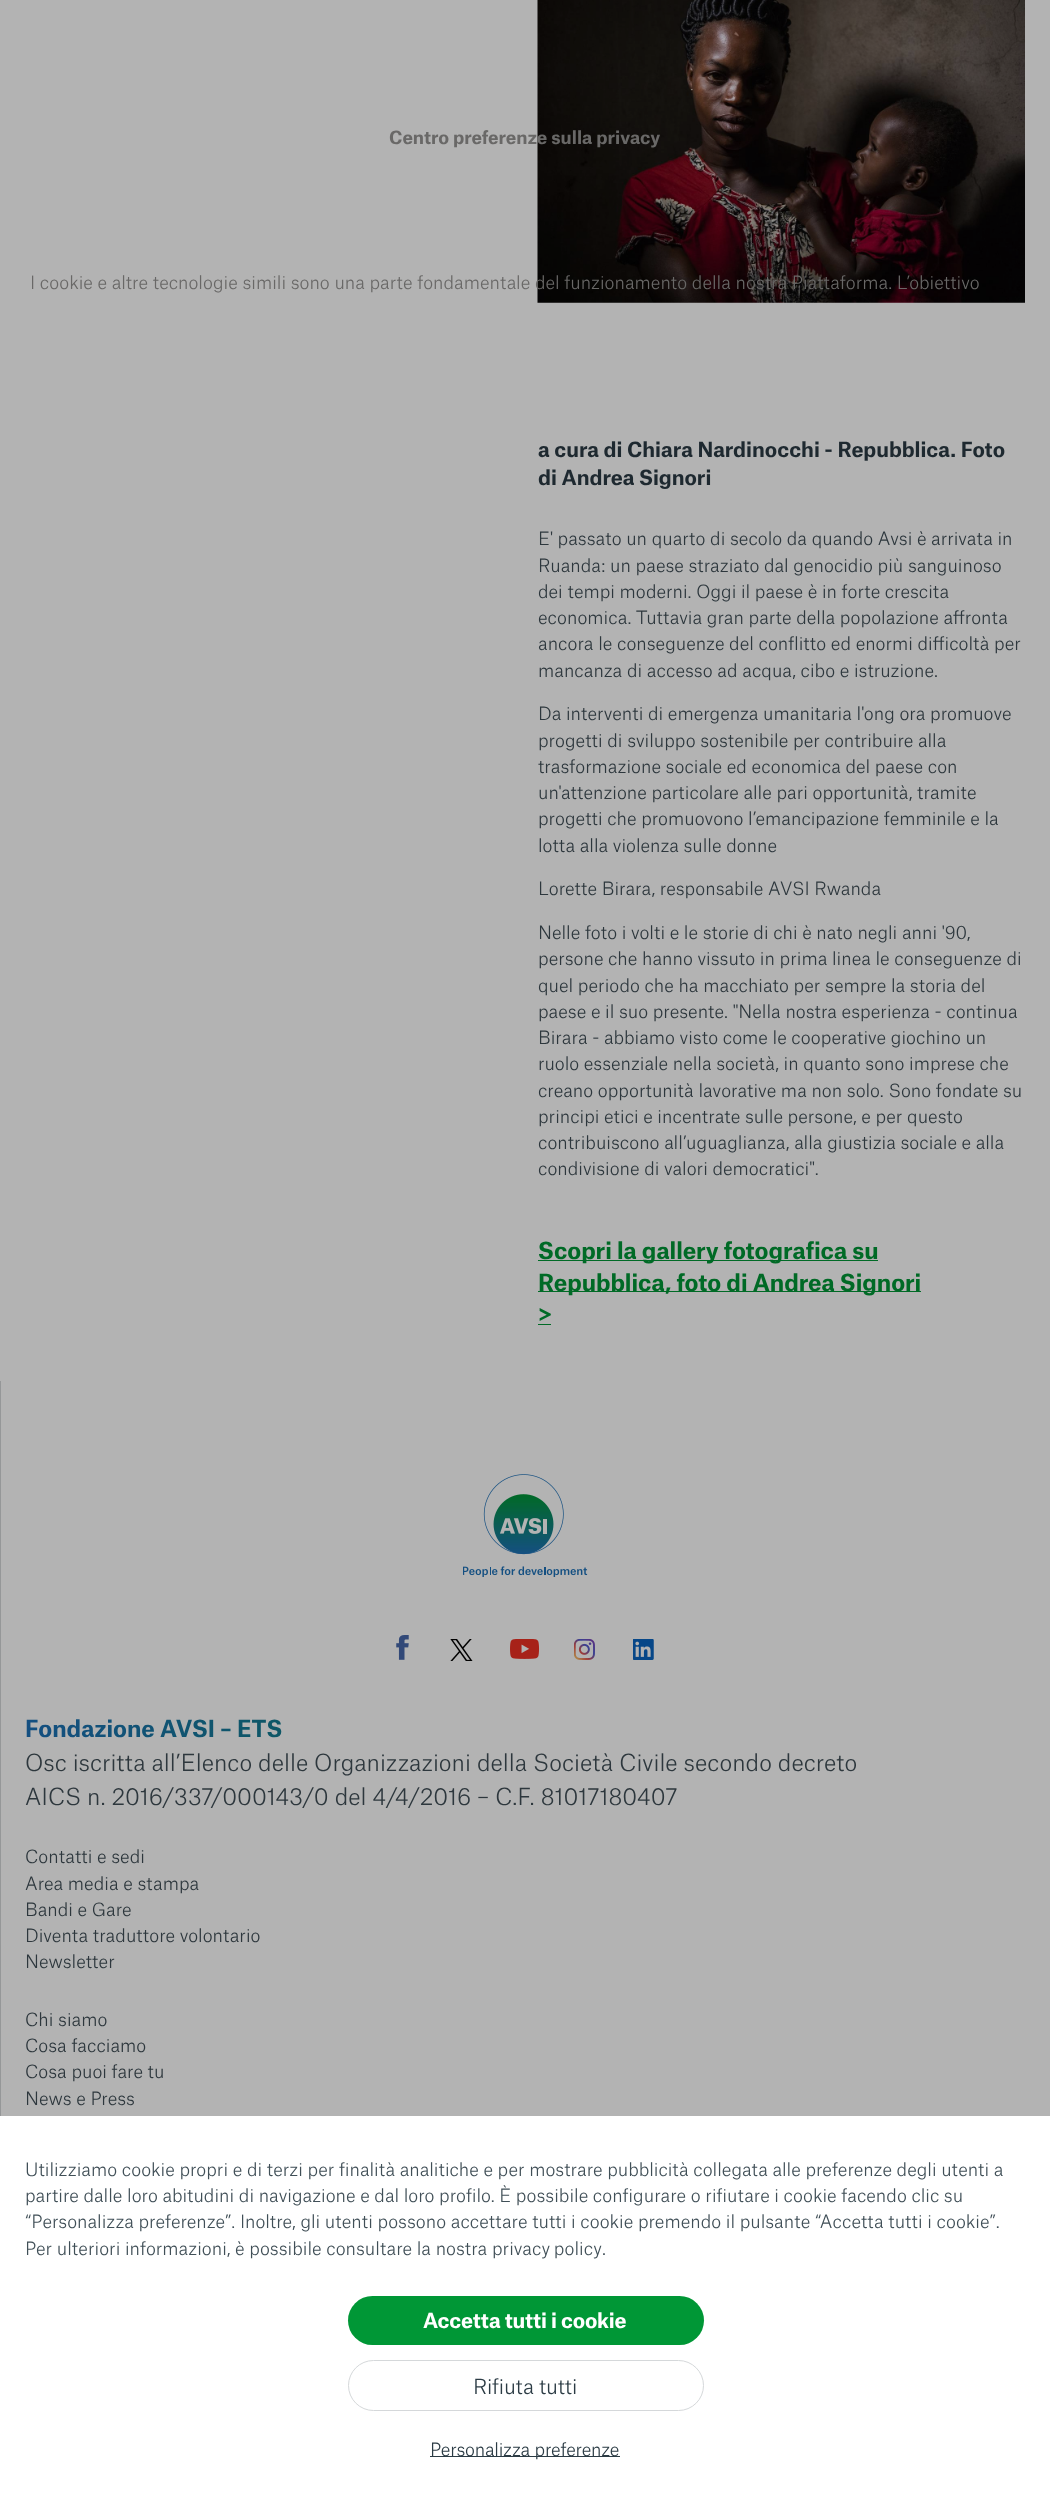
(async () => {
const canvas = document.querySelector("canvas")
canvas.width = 1050
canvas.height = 2512
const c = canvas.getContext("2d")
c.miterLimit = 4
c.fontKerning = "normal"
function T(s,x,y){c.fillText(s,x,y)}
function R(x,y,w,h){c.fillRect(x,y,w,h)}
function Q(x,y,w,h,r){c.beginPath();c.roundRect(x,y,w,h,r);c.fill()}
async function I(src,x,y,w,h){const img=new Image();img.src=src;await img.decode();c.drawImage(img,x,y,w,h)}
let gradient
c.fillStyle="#b3b3b3"
R(0,0,1050,2512)
await I("1.png",537,0,488,303)
c.font="bold 17.5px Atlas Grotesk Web"
c.fillStyle="#696867"
T("Centro preferenze sulla privacy",389,144)
c.font="300 17.5px Atlas Grotesk Web"
T("I cookie e altre tecnologie simili sono una parte fondamentale del funzionamento della nostra Piattaforma. L’obiettivo",30,289)
c.fillStyle="#fff"
R(0,2116,1050,396)
c.fillStyle="#404f57"
T("Utilizziamo cookie propri e di terzi per finalità analitiche e per mostrare pubblicità collegata alle preferenze degli utenti a",25,2176)
T("partire dalle loro abitudini di navigazione e dal loro profilo. È possibile configurare o rifiutare i cookie facendo clic su",25,2202)
T("“Personalizza preferenze”. Inoltre, gli utenti possono accettare tutti i cookie premendo il pulsante “Accetta tutti i cookie”.",25,2228)
T("Per ulteriori informazioni, è possibile consultare la nostra",25,2255)
c.wordSpacing="-1px"
T("privacy policy",492,2255)
c.wordSpacing="0px"
T(".",602,2255)
c.fillStyle="#009736"
Q(348,2296,356,49,24.5)
c.letterSpacing="-0.2px"
c.font="bold 20px Atlas Grotesk Web"
c.fillStyle="#fff"
T("Accetta tutti i cookie",423,2328)
c.beginPath()
c.roundRect(348.5,2360.5,355,50,25)
c.strokeStyle="#d5d8da"
c.stroke()
c.font="300 20px Atlas Grotesk Web"
c.fillStyle="#2b3b44"
T("Rifiuta tutti",473,2394)
R(430,2456,190,1)
c.font="300 17.5px Atlas Grotesk Web"
T("Personalizza preferenze",430,2456)
c.letterSpacing="0px"
c.font="bold 20px Atlas Grotesk Web"
c.fillStyle="#1e2930"
T("a cura di Chiara Nardinocchi - Repubblica. Foto",538,457)
T("di Andrea Signori",538,485)
c.font="300 17.5px Atlas Grotesk Web"
c.fillStyle="#2d373d"
T("E' passato un quarto di secolo da quando Avsi è arrivata in",538,545)
T("Ruanda: un paese straziato dal genocidio più sanguinoso",538,572)
T("dei tempi moderni. Oggi il paese è in forte crescita",538,598)
T("economica. Tuttavia gran parte della popolazione affronta",538,624)
T("ancora le conseguenze del conflitto ed enormi difficoltà per",538,650)
T("mancanza di accesso ad acqua, cibo e istruzione.",538,677)
T("Da interventi di emergenza umanitaria l'ong ora promuove",538,720)
T("progetti di sviluppo sostenibile per contribuire alla",538,747)
T("trasformazione sociale ed economica del paese con",538,773)
T("un'attenzione particolare alle pari opportunità, tramite",538,799)
T("progetti che promuovono l’emancipazione femminile e la",538,825)
T("lotta alla violenza sulle donne",538,852)
T("Lorette Birara, responsabile AVSI Rwanda",538,895)
T("Nelle foto i volti e le storie di chi è nato negli anni '90,",538,939)
T("persone che hanno vissuto in prima linea le conseguenze di",538,965)
T("quel periodo che ha macchiato per sempre la storia del",538,992)
T("paese e il suo presente. \"Nella nostra esperienza - continua",538,1018)
T("Birara - abbiamo visto come le cooperative giochino un",538,1044)
T("ruolo essenziale nella società, in quanto sono imprese che",538,1070)
T("creano opportunità lavorative ma non solo. Sono fondate su",538,1097)
T("principi etici e incentrate sulle persone, e per questo",538,1123)
T("contribuiscono all’uguaglianza, alla giustizia sociale e alla",538,1149)
T("condivisione di valori democratici\".",538,1175)
c.fillStyle="#006a26"
R(538,1260,340,1)
c.font="bold 22.5px Atlas Grotesk Web"
T("Scopri la gallery fotografica su",538,1259)
R(538,1291,383,1)
T("Repubblica, foto di Andrea Signori",538,1291)
T(">",538,1322)
R(538,1324,13,1)
c.fillStyle="#959798"
R(0,1381,1,735)
await I("2.png",463,1474,125,103)
await I("3.png",396,1635,13,25)
await I("4.png",450,1639,23,22)
await I("5.png",510,1639,30,20)
await I("6.png",574,1639,21,21)
await I("7.png",633,1639,21,21)
gradient = c.createLinearGradient(25,1728,900,1728)
gradient.addColorStop(0,"#144f81")
gradient.addColorStop(1,"#006a26")
c.fillStyle = gradient
T("Fondazione AVSI – ETS",25,1737)
c.font="300 22.5px Atlas Grotesk Web"
c.fillStyle="#2d373d"
T("Osc iscritta all’Elenco delle Organizzazioni della Società Civile secondo decreto",25,1771)
T("AICS n. 2016/337/000143/0 del 4/4/2016 – C.F. 81017180407",25,1805)
c.font="300 17.5px Atlas Grotesk Web"
T("Contatti e sedi",25,1863)
T("Area media e stampa",25,1890)
T("Bandi e Gare",25,1916)
T("Diventa traduttore volontario",25,1942)
T("Newsletter",25,1968)
T("Chi siamo",25,2026)
T("Cosa facciamo",25,2052)
T("Cosa puoi fare tu",25,2078)
T("News e Press",25,2105)
})()
